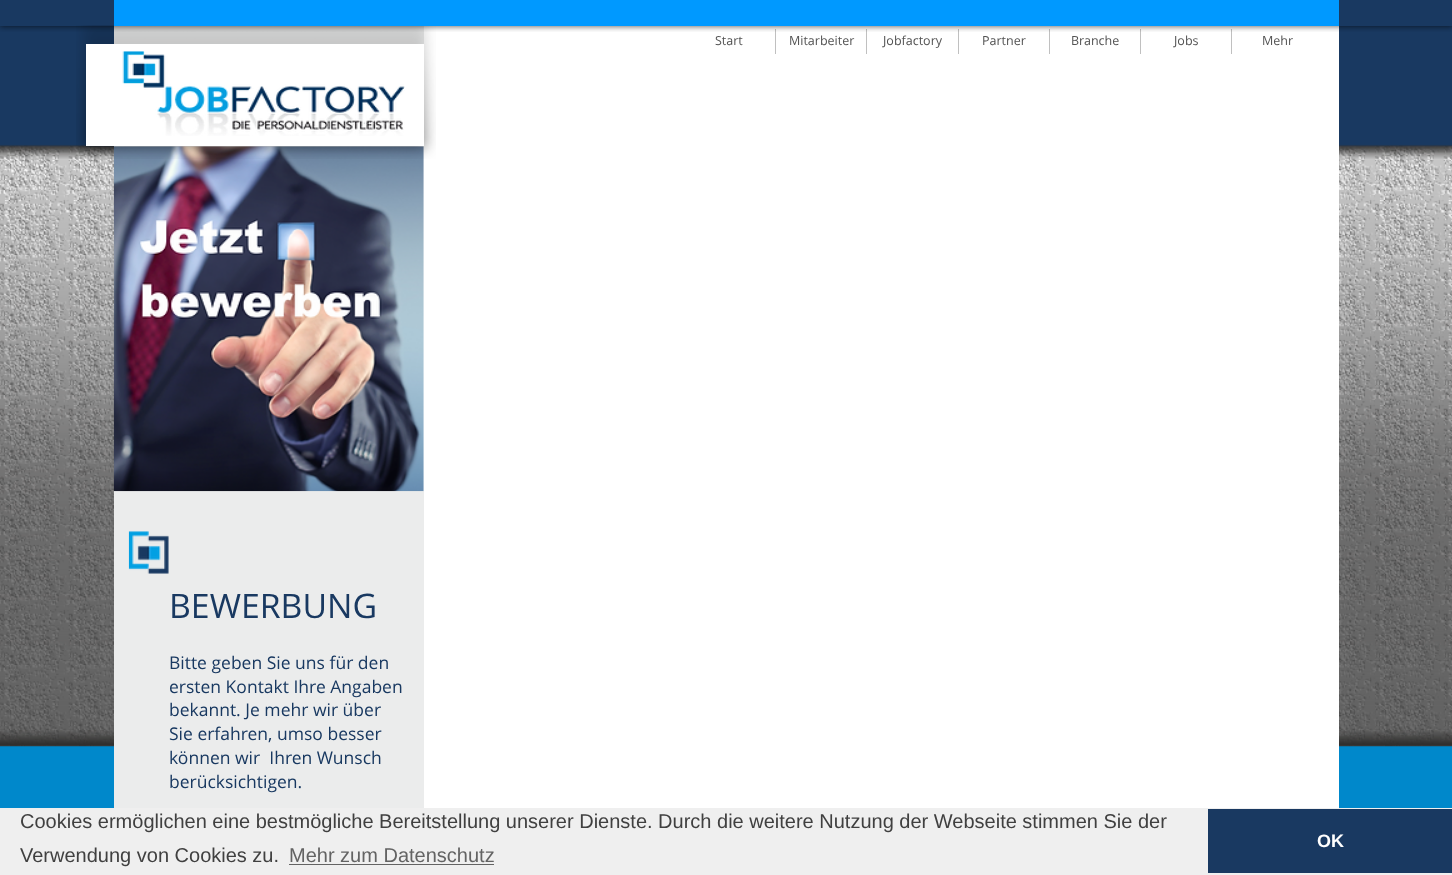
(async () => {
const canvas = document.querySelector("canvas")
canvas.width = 1452
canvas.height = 875
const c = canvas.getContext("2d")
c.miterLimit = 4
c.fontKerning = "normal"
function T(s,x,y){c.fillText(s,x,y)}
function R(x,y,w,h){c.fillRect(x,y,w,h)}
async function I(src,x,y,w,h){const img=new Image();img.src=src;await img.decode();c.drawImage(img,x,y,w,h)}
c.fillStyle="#0088cb"
R(0,0,1452,875)
await I("1.png",0,0,1452,747)
c.fillStyle="#ebecec"
R(114,26,310,782)
c.fillStyle="#fff"
R(114,146,310,345)
await I("6.png",113,146,311,346)
await I("2.png",76,25,54,134)
await I("3.png",130,26,250,133)
R(424,26,915,782)
await I("4.png",380,26,56,133)
c.fillStyle="#c0c0c0"
R(775,29,1,25)
R(866,29,1,25)
R(958,29,1,25)
R(1049,29,1,25)
R(1140,29,1,25)
R(1231,29,1,25)
c.save()
c.beginPath()
c.rect(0,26,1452,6)
c.clip()
c.fillStyle="#000000b3"
c.filter="blur(3px)"
c.beginPath()
c.rect(0,0,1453,26)
c.fill()
c.filter="none"
c.restore()
c.fillStyle="#09f"
R(114,0,1225,26)
c.fillStyle="#fff"
R(86,44,338,102)
await I("5.png",122,51,283,85)
c.font="12.5px Open Sans"
c.fillStyle="#535353"
T("Start",715,45)
T("Mitarbeiter",789,45)
T("Jobfactory",883,45)
T("Partner",982,45)
T("Branche",1071,45)
T("Jobs",1174,45)
T("Mehr",1262,45)
await I("7.png",128,531,41,43)
c.font="33.75px Open Sans"
c.fillStyle="#193961"
T("BEWERBUNG",169,618)
c.font="17.5px Open Sans"
T("Bitte geben Sie uns für den",169,669)
T("ersten Kontakt Ihre Angaben",169,693)
T("bekannt. Je mehr wir über",169,716)
T("Sie erfahren, umso besser",169,740)
T("können wir  Ihren Wunsch",169,764)
T("berücksichtigen.",169,788)
c.fillStyle="#efefef"
R(0,808,1452,67)
c.font="20px Liberation Sans"
c.fillStyle="#404040"
T("Cookies ermöglichen eine bestmögliche Bereitstellung unserer Dienste. Durch die weitere Nutzung der Webseite stimmen Sie der",20,828)
T("Verwendung von Cookies zu.",20,862)
c.fillStyle="#636363"
T("Mehr zum Datenschutz",289,862)
R(289,864,205,1)
c.fillStyle="#193961"
R(1208,809,244,64)
c.font="bold 18px Liberation Sans"
c.fillStyle="#fff"
T("OK",1317,847)
})()
